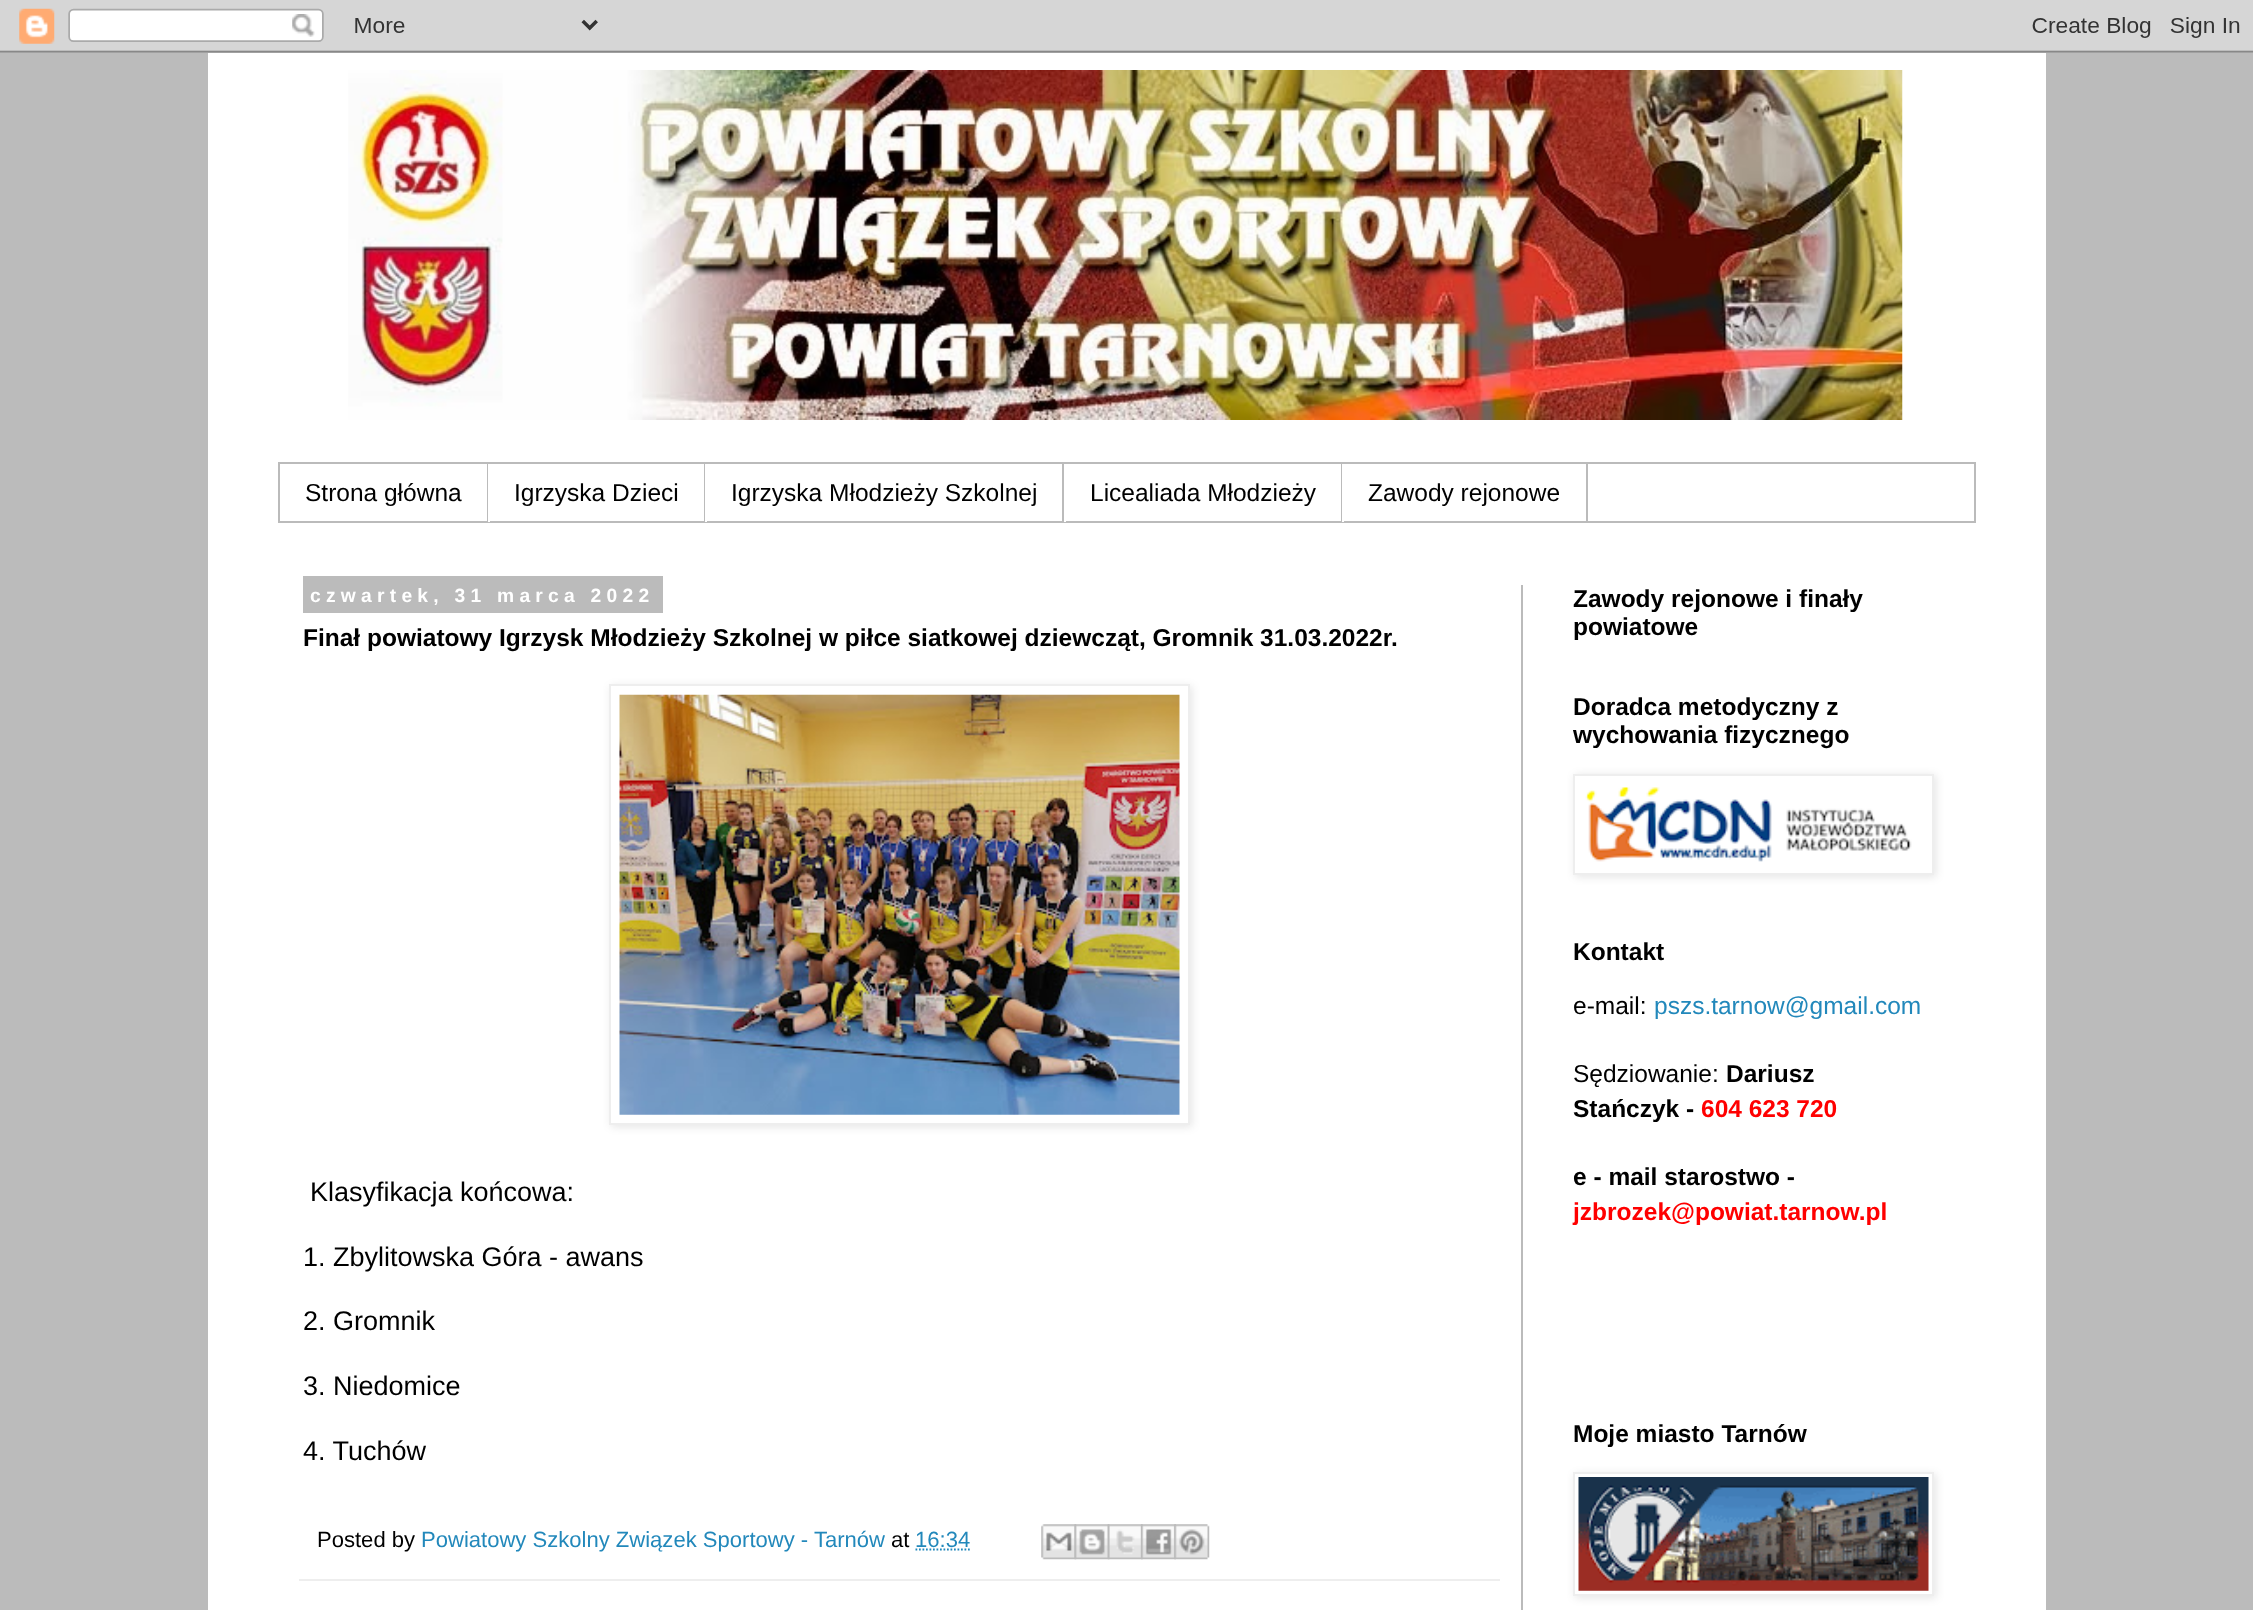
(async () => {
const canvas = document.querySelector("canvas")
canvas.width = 2253
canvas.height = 1610
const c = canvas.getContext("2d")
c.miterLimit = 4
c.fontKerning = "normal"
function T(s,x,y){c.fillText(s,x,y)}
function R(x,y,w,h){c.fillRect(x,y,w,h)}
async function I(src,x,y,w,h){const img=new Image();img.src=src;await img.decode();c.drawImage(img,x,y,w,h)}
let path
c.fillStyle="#bbb"
R(0,0,2253,1610)
await I("1.png",0,0,2253,53)
c.fillStyle="#fff"
R(208,53,1838,1557)
await I("2.png",348,70,1555,350)
c.strokeStyle="#bbb"
c.lineWidth=2
c.strokeRect(279,463,1696,59)
c.fillStyle="#bbb"
R(487,464,1,58)
c.font="24.5px Liberation Sans"
c.fillStyle="#000"
T("Strona główna",305,501)
c.fillStyle="#bbb"
R(704,464,1,58)
c.fillStyle="#fff"
R(488,521,2,1)
c.fillStyle="#000"
T("Igrzyska Dzieci",514,501)
c.fillStyle="#bbb"
R(1062,464,2,58)
c.fillStyle="#fff"
R(705,521,2,1)
c.fillStyle="#000"
T("Igrzyska Młodzieży Szkolnej",731,501)
c.fillStyle="#bbb"
R(1341,464,1,58)
c.fillStyle="#fff"
R(1064,521,2,1)
c.fillStyle="#000"
T("Licealiada Młodzieży",1090,501)
c.fillStyle="#bbb"
R(1586,464,2,58)
c.fillStyle="#fff"
R(1342,521,2,1)
c.fillStyle="#000"
T("Zawody rejonowe",1368,501)
c.fillStyle="#bbb"
R(1521,585,2,1025)
R(303,576,360,37)
c.letterSpacing="5.25px"
c.font="bold 19.25px Liberation Sans"
c.fillStyle="#fff"
T("czwartek, 31 marca 2022",310,602)
c.letterSpacing="0px"
c.font="bold 24.5px Liberation Sans"
c.fillStyle="#000"
T("Finał powiatowy Igrzysk Młodzieży Szkolnej w piłce siatkowej dziewcząt, Gromnik 31.03.2022r.",303,646)
c.fillStyle="#0000001a"
c.filter="blur(4.5px)"
c.beginPath()
c.rect(611,686,581,441)
c.fill()
c.filter="none"
c.fillStyle="#fff"
c.beginPath()
c.rect(610,685,579,439)
c.fill()
c.strokeStyle="#eee"
c.stroke()
await I("3.png",619,694,561,421)
c.font="27px Liberation Sans"
c.fillStyle="#000"
T("Klasyfikacja końcowa:",310,1201)
T("1. Zbylitowska Góra - awans",303,1266)
T("2. Gromnik",303,1330)
T("3. Niedomice",303,1395)
T("4. Tuchów",303,1460)
c.fillStyle="#eee"
R(299,1579,1201,2)
c.font="22.05px Liberation Sans"
c.fillStyle="#000"
T("Posted by",317,1547)
c.fillStyle="#28b"
T("Powiatowy Szkolny Związek Sportowy - Tarnów",421,1547)
c.fillStyle="#000"
T("at",891,1547)
c.fillStyle="#28b"
T("16:34",915,1547)
path = new Path2D("M915.5 1549.5h55")
c.strokeStyle="#28b"
c.lineWidth=1.8
c.setLineDash([1.75,1.75])
c.stroke(path)
await I("4.png",1041,1524,36,36)
await I("5.png",1074,1524,36,36)
await I("6.png",1107,1524,36,36)
await I("7.png",1141,1524,35,36)
await I("8.png",1174,1524,36,36)
c.font="bold 24.5px Liberation Sans"
c.fillStyle="#000"
T("Zawody rejonowe i finały",1573,607)
T("powiatowe",1573,635)
T("Doradca metodyczny z",1573,715)
T("wychowania fizycznego",1573,743)
c.fillStyle="#0000001a"
c.filter="blur(4.5px)"
c.beginPath()
c.rect(1575,775,361,102)
c.fill()
c.filter="none"
c.fillStyle="#fff"
c.beginPath()
c.rect(1574,775,359,99)
c.fill()
c.strokeStyle="#eee"
c.lineWidth=2
c.setLineDash([])
c.stroke()
await I("9.png",1585,787,327,75)
c.fillStyle="#000"
T("Kontakt",1573,960)
c.font="24.5px Liberation Sans"
T("e-mail:",1573,1014)
c.fillStyle="#28b"
T("pszs.tarnow@gmail.com",1654,1014)
c.fillStyle="#000"
T("Sędziowanie:",1573,1082)
c.font="bold 24.5px Liberation Sans"
T("Dariusz",1726,1082)
T("Stańczyk -",1573,1117)
c.fillStyle="#f00"
T("604 623 720",1701,1117)
c.fillStyle="#000"
T("e - mail starostwo -",1573,1185)
c.fillStyle="#f00"
T("jzbrozek@powiat.tarnow.pl",1573,1220)
c.fillStyle="#000"
T("Moje miasto Tarnów",1573,1442)
c.fillStyle="#0000001a"
c.filter="blur(4.5px)"
c.beginPath()
c.rect(1575,1474,361,124)
c.fill()
c.filter="none"
c.fillStyle="#fff"
c.beginPath()
c.rect(1574,1473,359,122)
c.fill()
c.stroke()
await I("10.png",1578,1477,351,114)
})()
